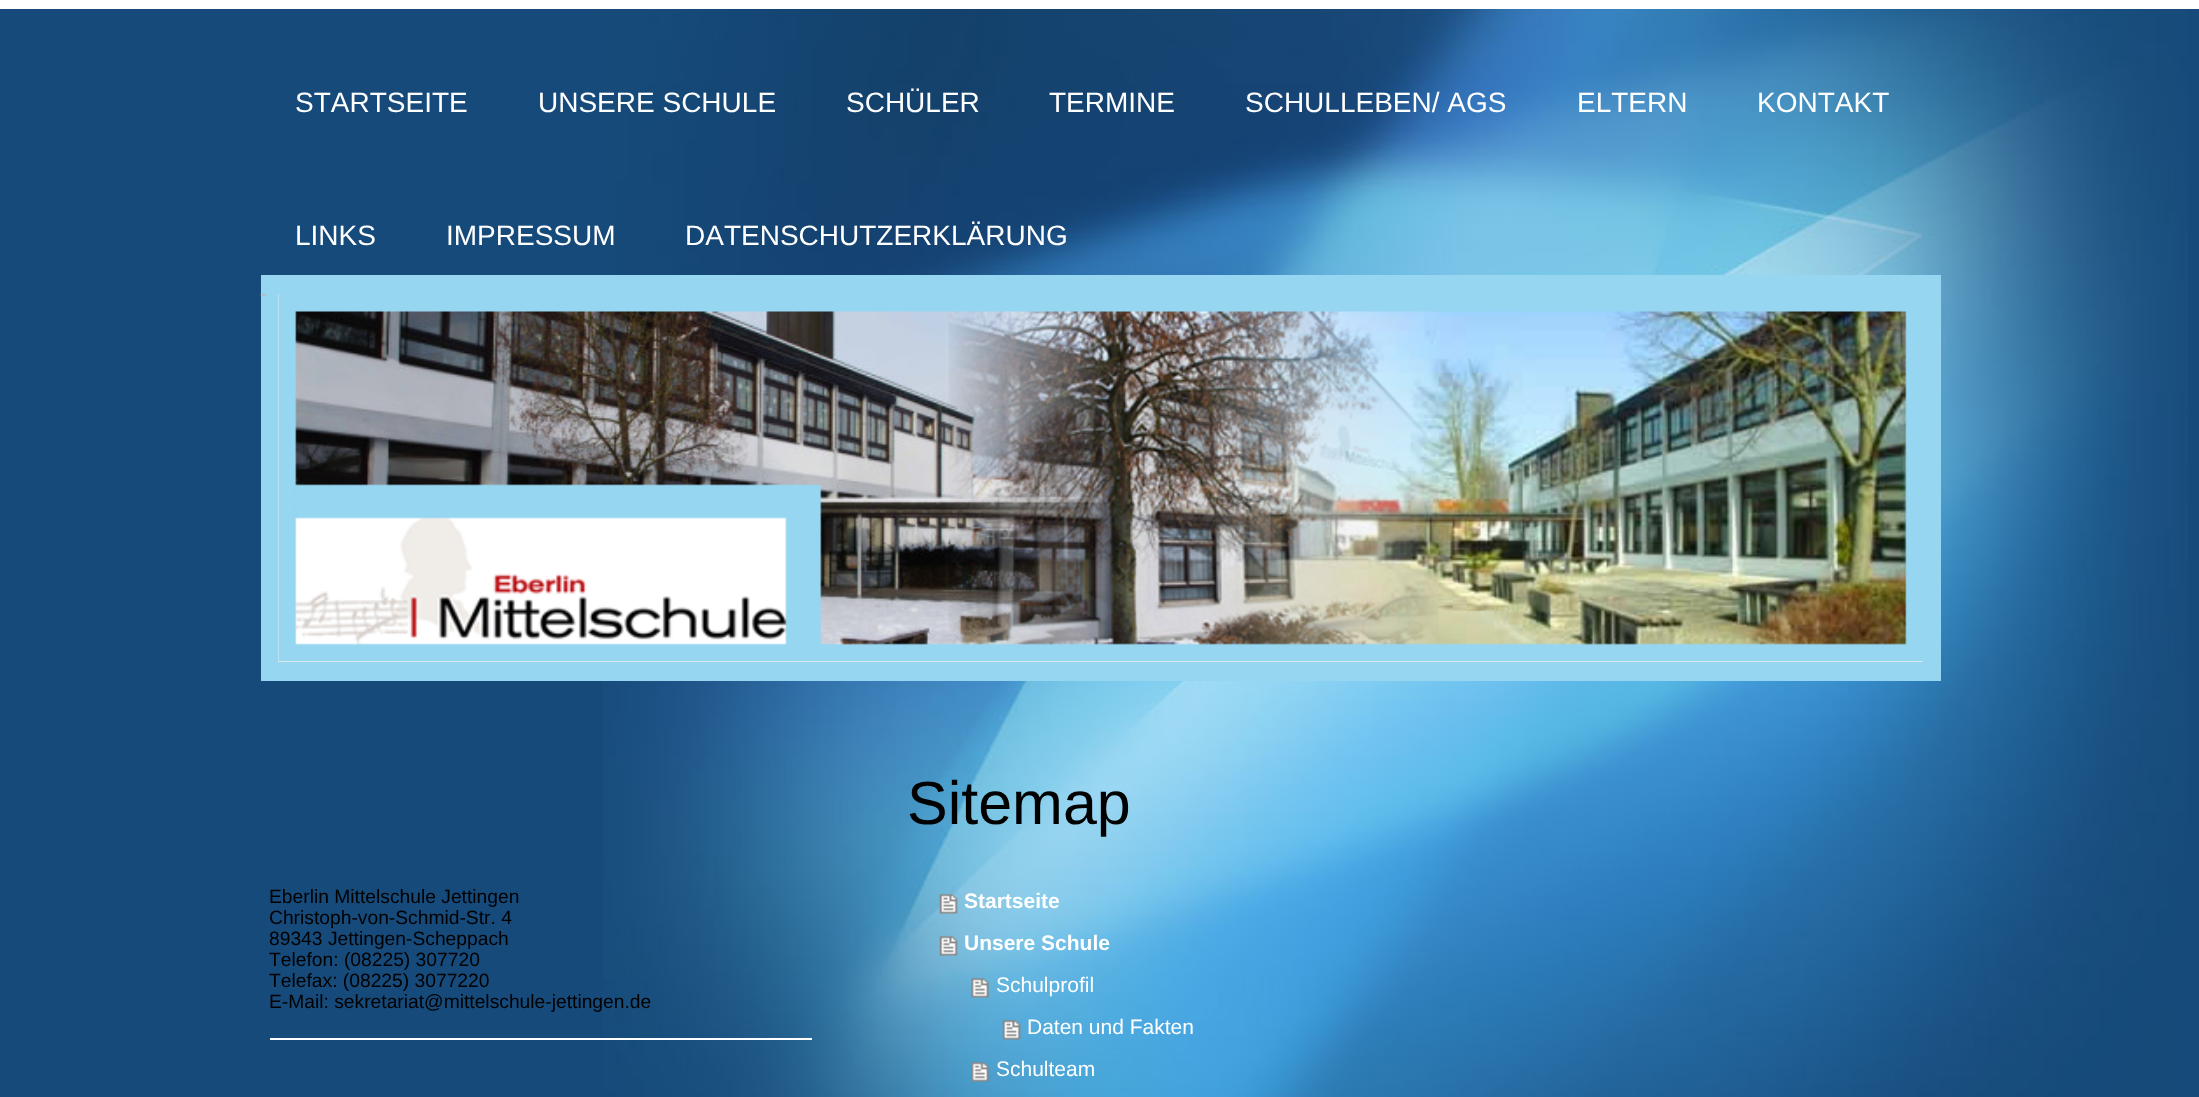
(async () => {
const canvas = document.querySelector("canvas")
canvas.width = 2199
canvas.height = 1097
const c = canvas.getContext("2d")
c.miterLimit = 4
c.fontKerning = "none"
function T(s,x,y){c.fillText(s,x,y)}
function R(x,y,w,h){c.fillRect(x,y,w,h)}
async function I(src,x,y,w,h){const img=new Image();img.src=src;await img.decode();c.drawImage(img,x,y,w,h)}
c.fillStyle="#164a7a"
R(0,0,2199,1097)
await I("1.png",603,9,1585,1088)
c.fillStyle="#fff"
R(0,0,2199,9)
c.font="28px Liberation Sans"
T("STARTSEITE",295,112)
T("UNSERE SCHULE",538,112)
T("SCHÜLER",846,112)
T("TERMINE",1049,112)
T("SCHULLEBEN/ AGS",1245,112)
T("ELTERN",1577,112)
T("KONTAKT",1757,112)
T("LINKS",295,245)
T("IMPRESSUM",446,245)
T("DATENSCHUTZERKLÄRUNG",685,245)
c.fillStyle="#97d6f1"
R(261,275,1680,406)
await I("2.png",260,294,6,3)
c.fillStyle="#eee"
R(278,294,1645,368)
await I("3.png",278,294,1645,368)
c.font="19.25px Liberation Sans"
c.fillStyle="#000"
T("Eberlin Mittelschule Jettingen",269,903)
T("Christoph-von-Schmid-Str. 4",269,924)
T("89343 Jettingen-Scheppach",269,945)
T("Telefon: (08225) 307720",269,966)
T("Telefax: (08225) 3077220",269,987)
T("E-Mail: sekretariat@mittelschule-jettingen.de",269,1008)
c.fillStyle="#fff"
R(270,1038,542,2)
c.font="61px Liberation Sans"
c.fillStyle="#000"
T("Sitemap",907,824)
await I("4.png",939,893,19,21)
c.font="bold 21px Liberation Sans"
c.fillStyle="#fff"
T("Startseite",964,908)
await I("5.png",939,935,19,21)
T("Unsere Schule",964,950)
await I("6.png",971,977,19,21)
c.font="21px Liberation Sans"
T("Schulprofil",996,992)
await I("7.png",1002,1019,19,21)
T("Daten und Fakten",1027,1034)
await I("8.png",971,1061,19,21)
T("Schulteam",996,1076)
})()
